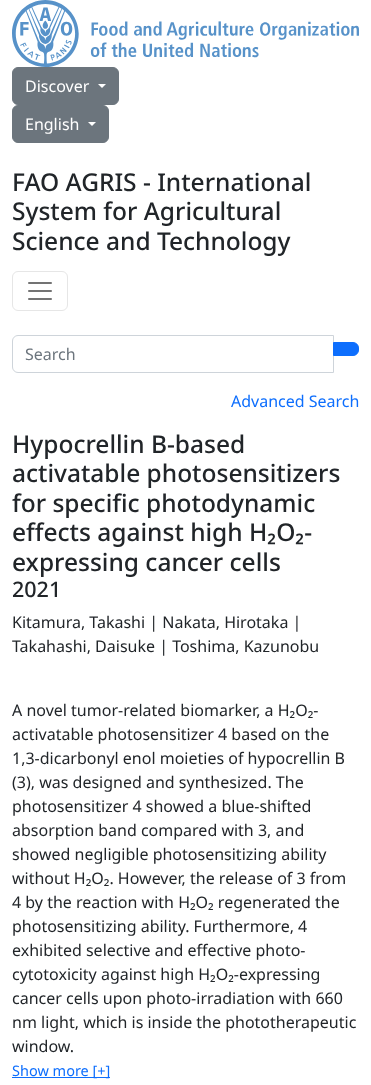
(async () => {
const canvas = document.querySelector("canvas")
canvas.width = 371
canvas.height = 1085
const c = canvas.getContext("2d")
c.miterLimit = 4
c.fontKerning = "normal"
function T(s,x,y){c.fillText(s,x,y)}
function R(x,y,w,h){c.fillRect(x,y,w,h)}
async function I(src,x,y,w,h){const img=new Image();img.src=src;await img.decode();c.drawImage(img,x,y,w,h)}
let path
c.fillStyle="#fff"
R(0,0,371,1085)
await I("1.png",12,0,347,67)
c.fillStyle="#6c757d"
c.beginPath()
c.roundRect(12.5,67.5,106,37,5.5)
c.fill()
c.strokeStyle="#6c757d"
c.stroke()
c.font="16px Noto Sans"
c.fillStyle="#fff"
T("Discover",25,92)
path = new Path2D("M98 84h8l-4 4z")
c.fill(path)
c.fillStyle="#6c757d"
c.beginPath()
c.roundRect(12.5,105.5,96,37,5.5)
c.fill()
c.stroke()
c.fillStyle="#fff"
T("English",25,130)
path = new Path2D("M88 122h8l-4 4z")
c.fill(path)
c.font="500 24.5px Noto Sans"
c.fillStyle="#212529"
T("FAO AGRIS - International",12,191)
T("System for Agricultural",12,220)
T("Science and Technology",12,250)
c.beginPath()
c.roundRect(12.5,271.5,55,39,5.5)
c.strokeStyle="#e6e6e6"
c.stroke()
await I("2.png",28,282,24,18)
c.beginPath()
c.roundRect(12.5,335.5,321,37,[5.5,0,0,5.5])
c.strokeStyle="#ced4da"
c.stroke()
c.font="16px Noto Sans"
c.fillStyle="#6c757d"
T("Search",25,360)
c.fillStyle="#0d6efd"
c.beginPath()
c.roundRect(333.5,342.5,25,13,[0,5.5,5.5,0])
c.fill()
c.strokeStyle="#0d6efd"
c.stroke()
T("Advanced Search",231,407)
c.font="500 24.5px Noto Sans"
c.fillStyle="#212529"
T("Hypocrellin B-based",12,453)
T("activatable photosensitizers",12,482)
T("for specific photodynamic",12,512)
T("effects against high H₂O₂-",12,541)
T("expressing cancer cells",12,571)
c.font="500 21.5px Noto Sans"
T("2021",12,597)
c.font="16px Noto Sans"
T("Kitamura, Takashi | Nakata, Hirotaka |",12,628)
T("Takahashi, Daisuke | Toshima, Kazunobu",12,652)
T("A novel tumor-related biomarker, a H₂O₂-",12,716)
T("activatable photosensitizer 4 based on the",12,740)
T("1,3-dicarbonyl enol moieties of hypocrellin B",12,764)
T("(3), was designed and synthesized. The",12,788)
T("photosensitizer 4 showed a blue-shifted",12,812)
T("absorption band compared with 3, and",12,836)
T("showed negligible photosensitizing ability",12,860)
T("without H₂O₂. However, the release of 3 from",12,884)
T("4 by the reaction with H₂O₂ regenerated the",12,908)
T("photosensitizing ability. Furthermore, 4",12,932)
T("exhibited selective and effective photo-",12,956)
T("cytotoxicity against high H₂O₂-expressing",12,980)
T("cancer cells upon photo-irradiation with 660",12,1004)
T("nm light, which is inside the phototherapeutic",12,1028)
T("window.",12,1052)
c.fillStyle="#0d6efd"
R(12,1077,98,1)
c.font="14.5px Noto Sans"
T("Show more [+]",12,1076)
})()
